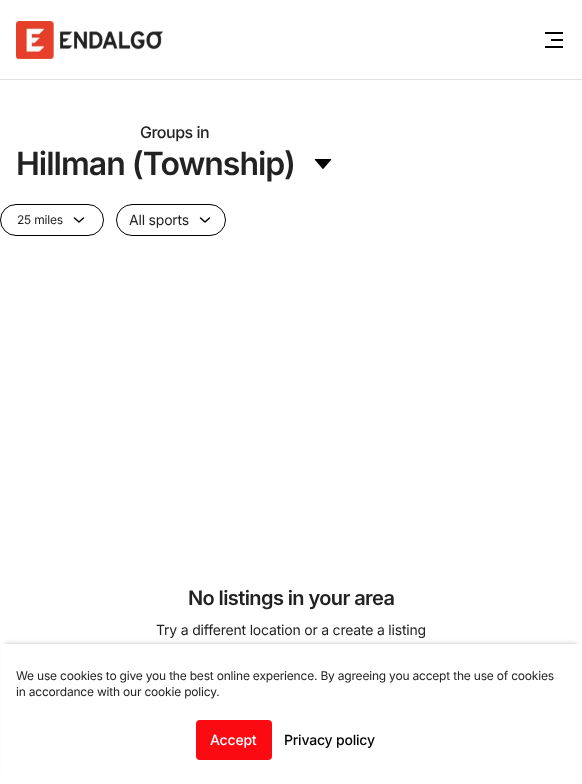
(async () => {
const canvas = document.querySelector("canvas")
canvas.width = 582
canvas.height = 784
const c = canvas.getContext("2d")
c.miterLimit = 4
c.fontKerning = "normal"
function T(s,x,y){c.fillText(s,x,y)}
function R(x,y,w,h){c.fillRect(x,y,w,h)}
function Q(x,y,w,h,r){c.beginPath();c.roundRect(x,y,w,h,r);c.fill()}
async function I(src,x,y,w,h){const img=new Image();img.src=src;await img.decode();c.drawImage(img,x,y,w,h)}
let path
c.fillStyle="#fff"
R(0,0,582,784)
c.fillStyle="#e1e1e1"
R(0,79,582,1)
await I("1.png",16,21,147,38)
await I("2.png",545,32,18,16)
c.letterSpacing="-0.5px"
c.font="500 16px Inter"
c.fillStyle="#222"
T("Groups in",140,138)
c.letterSpacing="-1px"
c.font="600 32px Inter"
T("Hillman (Township)",16,175)
await I("3.png",314,159,18,10)
c.beginPath()
c.roundRect(.5,204.5,103,31,15.5)
c.strokeStyle="#000"
c.stroke()
c.letterSpacing="-0.2px"
c.font="12px Inter"
T("25 miles",17,224)
path = new Path2D("M74.5 218l4.5 4l4.5-4")
c.lineWidth=1.5
c.lineCap="round"
c.lineJoin="round"
c.stroke(path)
c.beginPath()
c.roundRect(116.5,204.5,109,31,15.5)
c.lineWidth=1
c.lineJoin="miter"
c.stroke()
c.font="14px Inter"
T("All sports",129,225)
path = new Path2D("M200.5 218l4.5 4l4.5-4")
c.lineWidth=1.5
c.lineJoin="round"
c.stroke(path)
c.letterSpacing="-0.6px"
c.font="600 20px Inter"
T("No listings in your area",188,605)
c.letterSpacing="-0.2px"
c.font="14px Inter"
T("Try a different location or a create a listing",156,635)
c.fillStyle="#00000040"
c.filter="blur(2.5px)"
c.beginPath()
c.rect(5,644,572,130)
c.fill()
c.filter="none"
c.fillStyle="#fff"
R(1,644,580,134)
c.font="12px Inter"
c.fillStyle="#222"
T("We use cookies to give you the best online experience. By agreeing you accept the use of cookies",16,680)
T("in accordance with our cookie policy.",16,696)
c.fillStyle="#fb0a12"
Q(196,720,76,40,4)
c.font="500 14px Inter"
c.fillStyle="#fff"
T("Accept",210,745)
c.fillStyle="#000"
T("Privacy policy",284,745)
})()
